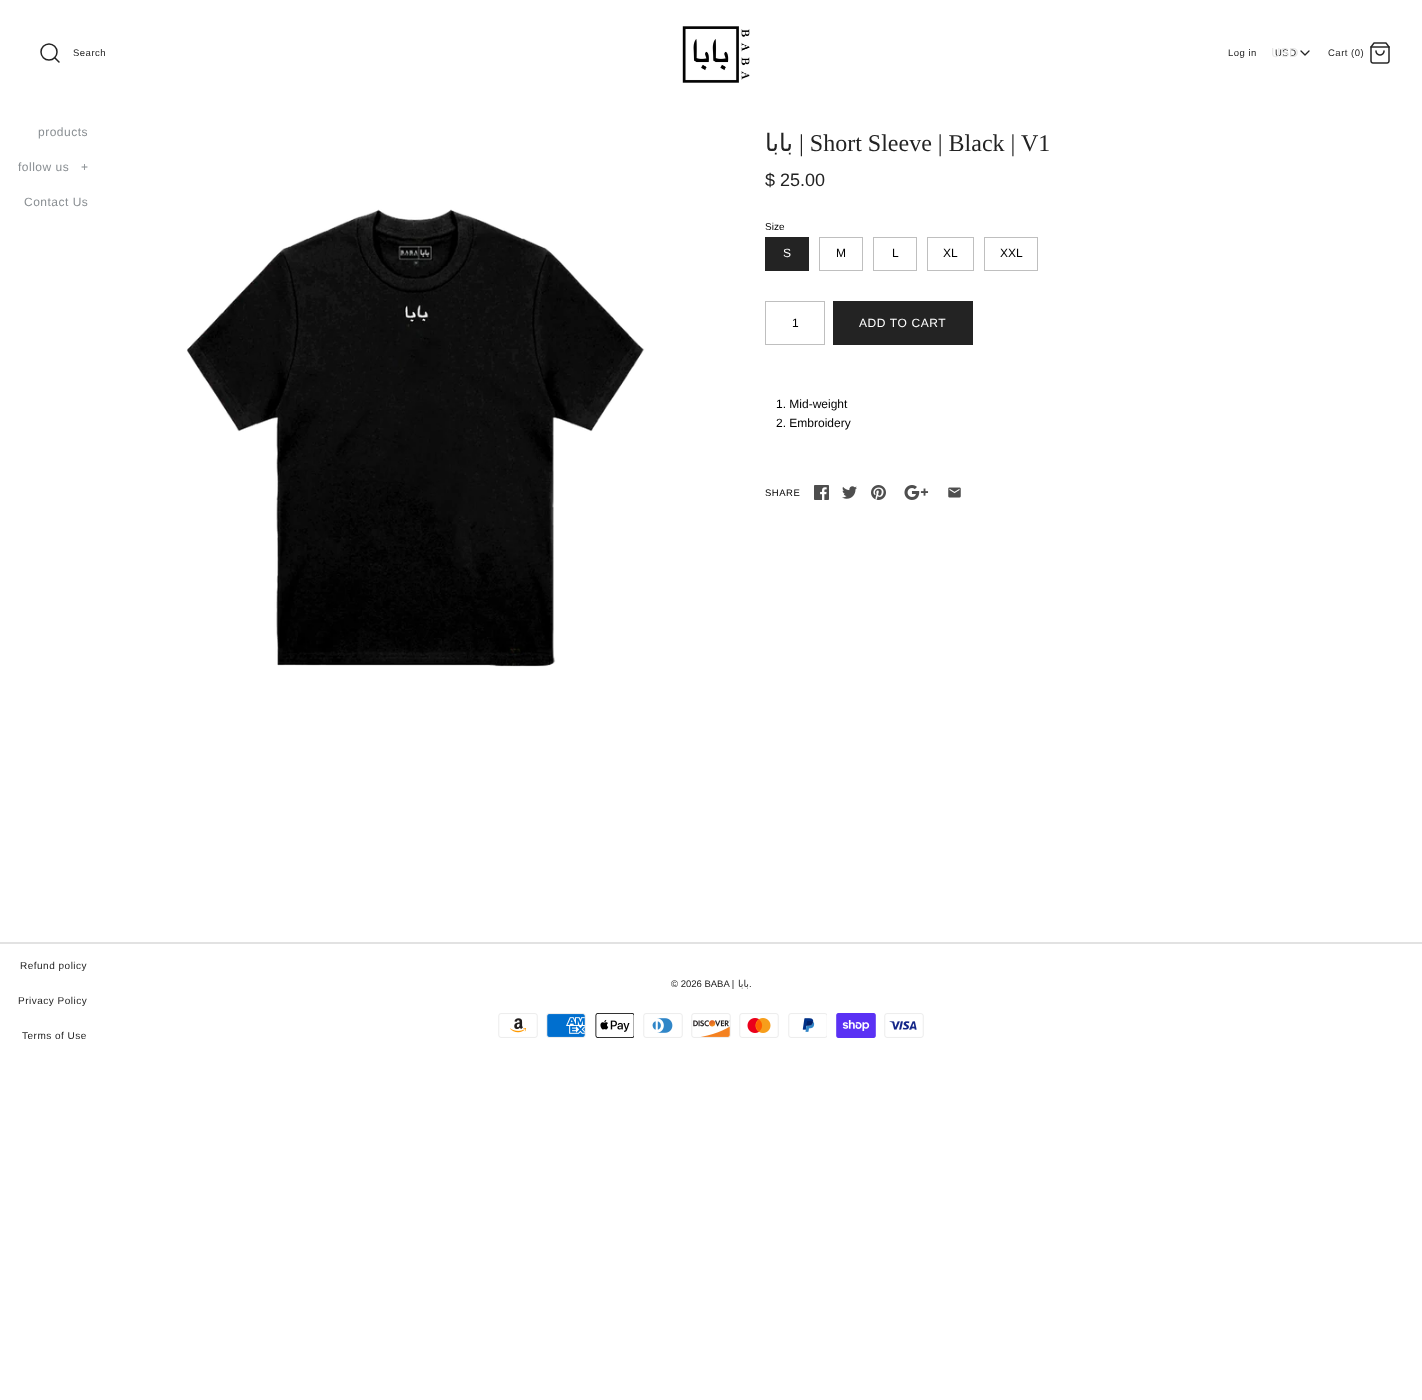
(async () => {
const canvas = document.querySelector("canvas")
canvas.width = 1422
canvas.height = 1400
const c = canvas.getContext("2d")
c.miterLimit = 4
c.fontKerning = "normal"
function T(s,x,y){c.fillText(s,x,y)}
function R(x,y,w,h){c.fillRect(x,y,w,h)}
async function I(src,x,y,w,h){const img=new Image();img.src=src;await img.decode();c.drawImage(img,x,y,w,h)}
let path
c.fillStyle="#fff"
R(0,0,1422,1400)
await I("1.png",682,26,68,57)
c.beginPath()
c.arc(49,52,8,0,7)
c.strokeStyle="#232323"
c.lineWidth=1.5
c.stroke()
path = new Path2D("M59 62l-4.5-4.5")
c.lineCap="round"
c.lineJoin="round"
c.stroke(path)
c.letterSpacing="0.5px"
c.font="9.5px Liberation Sans"
c.fillStyle="#232323"
T("Search",73,56)
T("Log in",1228,56)
T("USD",1275,56)
c.letterSpacing="0px"
c.font="13px Liberation Sans"
c.fillStyle="#e7e7e7"
T("USD",1271,57)
path = new Path2D("M1301 51l4 4l4-4")
c.lineWidth=1.3
c.stroke(path)
c.letterSpacing="0.5px"
c.font="9.5px Liberation Sans"
c.fillStyle="#232323"
T("Cart (0)",1328,56)
await I("2.png",1370,42,20,22)
c.font="12px Liberation Sans"
c.fillStyle="#8a8f93"
T("products",38,136)
T("follow us",18,171)
T("+",81,171)
T("Contact Us",24,206)
await I("3.png",186,209,459,458)
c.letterSpacing="0px"
c.direction="rtl"
c.font="24px DejaVu Sans"
c.fillStyle="#232323"
T("بابا",793,151)
c.direction="ltr"
c.font="24px Liberation Serif"
T("| Short Sleeve | Black | V1",799,151)
c.font="18px Liberation Sans"
T("$ 25.00",765,186)
c.font="10px Liberation Sans"
c.fillStyle="#000"
T("Size",765,230)
c.fillStyle="#232323"
R(765,237,44,34)
c.font="12px Liberation Sans"
c.fillStyle="#fff"
T("S",783,257)
c.strokeStyle="#bfbfbf"
c.lineWidth=1
c.lineJoin="miter"
c.strokeRect(819.5,237.5,43,33)
c.fillStyle="#000"
T("M",836,257)
c.strokeRect(873.5,237.5,43,33)
T("L",892,257)
c.strokeRect(927.5,237.5,46,33)
T("XL",943,257)
c.strokeRect(984.5,237.5,53,33)
T("XXL",1000,257)
c.strokeRect(765.5,301.5,59,43)
T("1",792,327)
c.fillStyle="#232323"
R(833,301,140,44)
c.letterSpacing="0.6px"
c.fillStyle="#fff"
T("ADD TO CART",859,327)
c.letterSpacing="0px"
c.fillStyle="#000"
T("1. Mid-weight",776,408)
T("2. Embroidery",776,427)
c.letterSpacing="0.5px"
c.font="9.5px Liberation Sans"
T("SHARE",765,496)
await I("4.png",814,485,15,15)
await I("5.png",842,486,15,13)
await I("6.png",871,485,15,15)
await I("7.png",904,485,25,15)
await I("8.png",948,487,13,11)
c.fillStyle="#e2e2e2"
R(0,942,1422,2)
c.font="10px Liberation Sans"
c.fillStyle="#232323"
T("Refund policy",20,969)
T("Privacy Policy",18,1004)
T("Terms of Use",22,1039)
c.letterSpacing="0px"
c.font="9.5px Liberation Sans"
T("© 2026 BABA |",671,987)
c.direction="rtl"
c.font="9.5px DejaVu Sans"
T("بابا",749,987)
c.direction="ltr"
c.font="9.5px Liberation Sans"
T(".",749,987)
await I("9.png",498,1013,40,25)
await I("10.png",546,1013,40,25)
await I("11.png",595,1013,39,25)
await I("12.png",643,1013,40,25)
await I("13.png",691,1013,40,25)
await I("14.png",739,1013,40,25)
await I("15.png",788,1013,39,25)
await I("16.png",836,1013,40,25)
await I("17.png",884,1013,40,25)
})()
